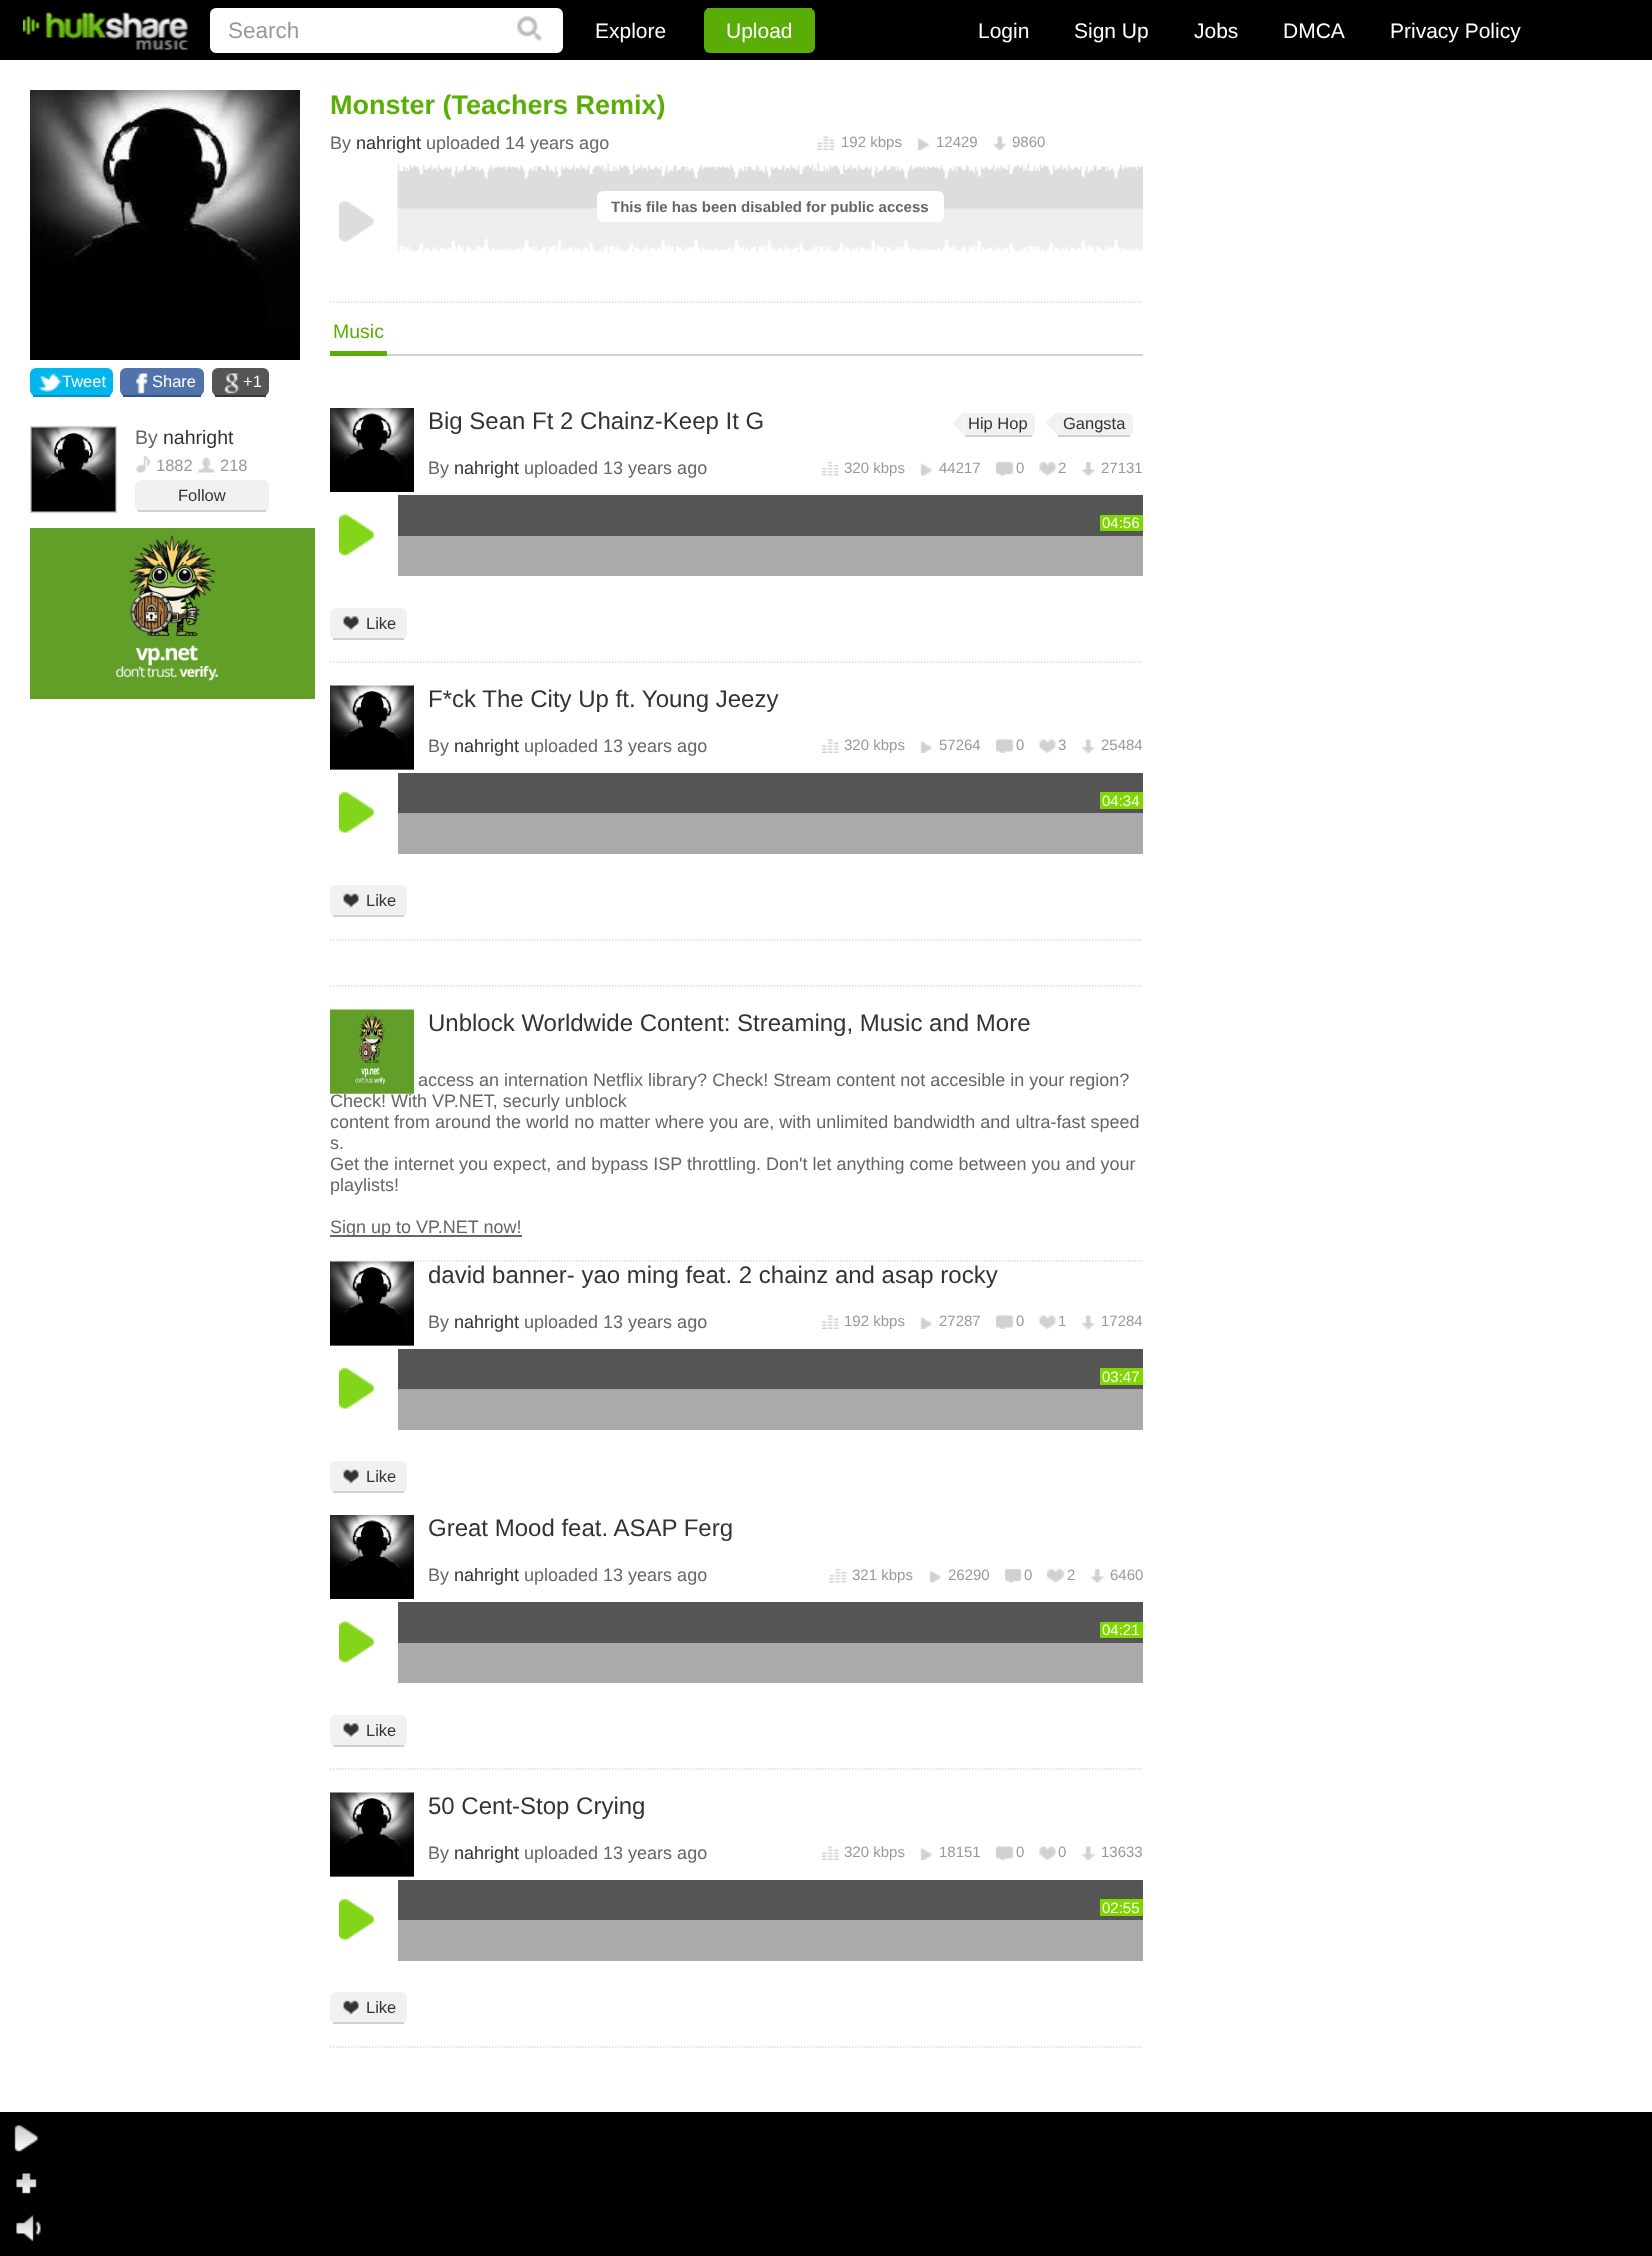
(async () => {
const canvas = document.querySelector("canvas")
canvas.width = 1652
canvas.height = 2256
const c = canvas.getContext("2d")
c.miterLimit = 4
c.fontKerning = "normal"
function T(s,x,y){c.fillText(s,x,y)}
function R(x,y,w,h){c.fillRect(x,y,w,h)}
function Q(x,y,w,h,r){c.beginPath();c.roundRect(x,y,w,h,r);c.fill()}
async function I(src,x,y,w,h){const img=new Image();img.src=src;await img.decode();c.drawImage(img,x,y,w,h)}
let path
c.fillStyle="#fff"
R(0,0,1652,2256)
c.fillStyle="#000"
R(0,0,1652,60)
await I("1.png",23,12,165,38)
c.fillStyle="#fff"
c.beginPath()
c.roundRect(211.5,9.5,350,42,4.5)
c.fill()
c.strokeStyle="#fff"
c.lineWidth=3
c.stroke()
c.font="22.5px Liberation Sans"
c.fillStyle="#999"
T("Search",228,38)
await I("2.png",517,16,25,25)
c.font="21px Liberation Sans"
c.fillStyle="#fff"
T("Explore",595,38)
c.fillStyle="#5aad07"
Q(704,8,111,45,6)
R(707,8,105,1)
c.fillStyle="#fff"
T("Upload",726,38)
T("Login",978,38)
T("Sign Up",1074,38)
T("Jobs",1194,38)
T("DMCA",1283,38)
T("Privacy Policy",1390,38)
await I("3.png",30,90,270,270)
c.fillStyle="#01b6ec"
Q(30,368,83,28,6)
await I("4.png",37,373,25,19)
c.fillStyle="#0595c0"
R(33,395,77,2)
c.font="16.5px Liberation Sans"
c.fillStyle="#fff"
T("Tweet",62,387)
c.fillStyle="#5272ac"
Q(120,368,84,28,6)
await I("5.png",136,373,12,21)
c.fillStyle="#315189"
R(123,395,78,2)
c.fillStyle="#fff"
T("Share",152,387)
c.fillStyle="#555"
Q(212,368,57,28,6)
await I("6.png",224,373,15,21)
c.fillStyle="#353535"
R(215,395,51,2)
c.fillStyle="#fff"
T("+1",243,387)
c.strokeStyle="#d0d0d0"
c.lineWidth=2
c.strokeRect(31,427,85,85)
await I("7.png",31,427,85,85)
c.font="19.5px Liberation Sans"
c.fillStyle="#666"
T("By",135,444)
c.fillStyle="#333"
T("nahright",163,444)
await I("8.png",136,455,15,18)
c.font="16.5px Liberation Sans"
c.fillStyle="#999"
T("1882",156,471)
await I("9.png",198,457,17,16)
T("218",220,471)
c.fillStyle="#f1f1f1"
Q(135,480,134,32,6)
c.fillStyle="#d0d0d0"
R(138,510,128,2)
c.fillStyle="#333"
T("Follow",178,501)
await I("10.png",30,528,285,171)
path = new Path2D("M330 302h813")
c.strokeStyle="#dcdcdc"
c.lineWidth=1.5
c.setLineDash([1.5,1.5])
c.stroke(path)
c.font="bold 27px Liberation Sans"
c.fillStyle="#5aae07"
T("Monster (Teachers Remix)",330,114)
c.font="18px Liberation Sans"
c.fillStyle="#666"
T("By",330,149)
c.fillStyle="#333"
T("nahright",356,149)
c.fillStyle="#666"
T("uploaded 14 years ago",426,149)
await I("11.png",817,136,18,14)
c.font="15px Liberation Sans"
c.fillStyle="#999"
T("192 kbps",841,147)
await I("12.png",917,138,12,12)
T("12429",936,147)
await I("13.png",993,136,14,14)
T("9860",1012,147)
await I("14.png",339,201,36,41)
await I("15.png",397,163,746,91)
c.fillStyle="#fff"
Q(597,191,347,31,6)
c.font="bold 15px Liberation Sans"
c.fillStyle="#666"
T("This file has been disabled for public access",611,212)
c.fillStyle="#d0d0d0"
R(387,354,756,2)
c.fillStyle="#5aae07"
R(330,351,57,5)
c.font="19.5px Liberation Sans"
T("Music",333,338)
path = new Path2D("M330 662h813")
c.stroke(path)
await I("16.png",330,408,84,84)
c.font="24px Liberation Sans"
c.fillStyle="#333"
T("Big Sean Ft 2 Chainz-Keep It G",428,429)
c.fillStyle="#f1f1f1"
c.beginPath()
c.roundRect(965,413,70,24,[0,6,6,0])
c.fill()
c.fillStyle="#d0d0d0"
R(965,435,67,2)
c.fillStyle="#f1f1f1"
path = new Path2D("M964.5 411v24l-12-12z")
c.fill(path)
c.font="16.5px Liberation Sans"
c.fillStyle="#333"
T("Hip Hop",968,429)
c.fillStyle="#f1f1f1"
c.beginPath()
c.roundRect(1058,413,75,24,[0,6,6,0])
c.fill()
c.fillStyle="#d0d0d0"
R(1058,435,72,2)
c.fillStyle="#f1f1f1"
path = new Path2D("M1057.5 411v24l-12-12z")
c.fill(path)
c.fillStyle="#333"
T("Gangsta",1063,429)
c.font="18px Liberation Sans"
c.fillStyle="#666"
T("By",428,474)
c.fillStyle="#333"
T("nahright",454,474)
c.fillStyle="#666"
T("uploaded 13 years ago",524,474)
await I("17.png",822,461,17,15)
c.font="15px Liberation Sans"
c.fillStyle="#999"
T("320 kbps",844,473)
await I("18.png",920,463,12,13)
T("44217",939,473)
await I("19.png",996,461,18,15)
T("0",1016,473)
await I("20.png",1039,461,17,15)
T("2",1058,473)
await I("21.png",1081,461,15,15)
T("27131",1101,473)
await I("22.png",339,514,36,41)
c.fillStyle="#555"
R(398,495,745,41)
c.fillStyle="#80d700"
R(1100,515,43,16)
c.fillStyle="#fff"
T("04:56",1102,528)
c.fillStyle="#aaa"
R(398,536,745,40)
c.fillStyle="#f1f1f1"
Q(330,608,77,31,6)
c.fillStyle="#d0d0d0"
R(333,638,71,2)
await I("23.png",343,616,16,15)
c.font="16.5px Liberation Sans"
c.fillStyle="#333"
T("Like",366,629)
path = new Path2D("M330 940h813")
c.stroke(path)
c.fillStyle="#bcbcbc"
R(330,769,84,1)
await I("24.png",330,685,84,85)
c.font="24px Liberation Sans"
c.fillStyle="#333"
T("F*ck The City Up ft. Young Jeezy",428,707)
c.font="18px Liberation Sans"
c.fillStyle="#666"
T("By",428,752)
c.fillStyle="#333"
T("nahright",454,752)
c.fillStyle="#666"
T("uploaded 13 years ago",524,752)
await I("25.png",822,739,17,14)
c.font="15px Liberation Sans"
c.fillStyle="#999"
T("320 kbps",844,750)
await I("12.png",920,741,12,12)
T("57264",939,750)
await I("26.png",996,739,18,14)
T("0",1016,750)
await I("27.png",1039,739,17,14)
T("3",1058,750)
await I("28.png",1081,739,15,14)
T("25484",1101,750)
await I("29.png",339,792,36,41)
c.fillStyle="#555"
R(398,773,745,40)
c.fillStyle="#80d700"
R(1100,792,43,17)
c.fillStyle="#fff"
T("04:34",1102,806)
c.fillStyle="#aaa"
R(398,813,745,41)
c.fillStyle="#f1f1f1"
Q(330,885,77,32,6)
c.fillStyle="#d0d0d0"
R(333,915,71,2)
await I("30.png",343,893,16,15)
c.font="16.5px Liberation Sans"
c.fillStyle="#333"
T("Like",366,906)
path = new Path2D("M330 986h813")
c.stroke(path)
path = new Path2D("M330 1261h813")
c.stroke(path)
c.font="18px Liberation Sans"
c.fillStyle="#666"
T("Check! With VP.NET, securly unblock",330,1107)
c.fillStyle="#bcbcbc"
R(330,1093,84,1)
await I("31.png",330,1009,84,85)
c.font="24px Liberation Sans"
c.fillStyle="#333"
T("Unblock Worldwide Content: Streaming, Music and More",428,1031)
c.font="18px Liberation Sans"
c.fillStyle="#666"
T("access an internation Netflix library? Check! Stream content not accesible in your region?",418,1086)
T("content from around the world no matter where you are, with unlimited bandwidth and ultra-fast speed",330,1128)
T("s.",330,1149)
T("Get the internet you expect, and bypass ISP throttling. Don't let anything come between you and your",330,1170)
T("playlists!",330,1191)
R(330,1235,192,2)
T("Sign up to VP.NET now!",330,1233)
c.fillStyle="#bcbcbc"
R(330,1345,84,1)
await I("32.png",330,1261,84,85)
c.font="24px Liberation Sans"
c.fillStyle="#333"
T("david banner- yao ming feat. 2 chainz and asap rocky",428,1283)
c.font="18px Liberation Sans"
c.fillStyle="#666"
T("By",428,1328)
c.fillStyle="#333"
T("nahright",454,1328)
c.fillStyle="#666"
T("uploaded 13 years ago",524,1328)
await I("25.png",822,1315,17,14)
c.font="15px Liberation Sans"
c.fillStyle="#999"
T("192 kbps",844,1326)
await I("12.png",920,1317,12,12)
T("27287",939,1326)
await I("26.png",996,1315,18,14)
T("0",1016,1326)
await I("27.png",1039,1315,17,14)
T("1",1058,1326)
await I("28.png",1081,1315,15,14)
T("17284",1101,1326)
await I("29.png",339,1368,36,41)
c.fillStyle="#555"
R(398,1349,745,40)
c.fillStyle="#80d700"
R(1100,1368,43,17)
c.fillStyle="#fff"
T("03:47",1102,1382)
c.fillStyle="#aaa"
R(398,1389,745,41)
c.fillStyle="#f1f1f1"
Q(330,1461,77,32,6)
c.fillStyle="#d0d0d0"
R(333,1491,71,2)
await I("30.png",343,1469,16,15)
c.font="16.5px Liberation Sans"
c.fillStyle="#333"
T("Like",366,1482)
path = new Path2D("M330 1769h813")
c.stroke(path)
await I("16.png",330,1515,84,84)
c.font="24px Liberation Sans"
T("Great Mood feat. ASAP Ferg",428,1536)
c.font="18px Liberation Sans"
c.fillStyle="#666"
T("By",428,1581)
c.fillStyle="#333"
T("nahright",454,1581)
c.fillStyle="#666"
T("uploaded 13 years ago",524,1581)
await I("33.png",829,1568,18,15)
c.font="15px Liberation Sans"
c.fillStyle="#999"
T("321 kbps",852,1580)
await I("18.png",929,1570,12,13)
T("26290",948,1580)
await I("34.png",1005,1568,17,15)
T("0",1024,1580)
await I("35.png",1047,1568,18,15)
T("2",1067,1580)
await I("21.png",1090,1568,15,15)
T("6460",1110,1580)
await I("22.png",339,1621,36,41)
c.fillStyle="#555"
R(398,1602,745,41)
c.fillStyle="#80d700"
R(1100,1622,43,16)
c.fillStyle="#fff"
T("04:21",1102,1635)
c.fillStyle="#aaa"
R(398,1643,745,40)
c.fillStyle="#f1f1f1"
Q(330,1715,77,31,6)
c.fillStyle="#d0d0d0"
R(333,1745,71,2)
await I("23.png",343,1723,16,15)
c.font="16.5px Liberation Sans"
c.fillStyle="#333"
T("Like",366,1736)
path = new Path2D("M330 2047h813")
c.stroke(path)
c.fillStyle="#bcbcbc"
R(330,1876,84,1)
await I("24.png",330,1792,84,85)
c.font="24px Liberation Sans"
c.fillStyle="#333"
T("50 Cent-Stop Crying",428,1814)
c.font="18px Liberation Sans"
c.fillStyle="#666"
T("By",428,1859)
c.fillStyle="#333"
T("nahright",454,1859)
c.fillStyle="#666"
T("uploaded 13 years ago",524,1859)
await I("25.png",822,1846,17,14)
c.font="15px Liberation Sans"
c.fillStyle="#999"
T("320 kbps",844,1857)
await I("12.png",920,1848,12,12)
T("18151",939,1857)
await I("26.png",996,1846,18,14)
T("0",1016,1857)
await I("27.png",1039,1846,17,14)
T("0",1058,1857)
await I("28.png",1081,1846,15,14)
T("13633",1101,1857)
await I("29.png",339,1899,36,41)
c.fillStyle="#555"
R(398,1880,745,40)
c.fillStyle="#80d700"
R(1100,1899,43,17)
c.fillStyle="#fff"
T("02:55",1102,1913)
c.fillStyle="#aaa"
R(398,1920,745,41)
c.fillStyle="#f1f1f1"
Q(330,1992,77,32,6)
c.fillStyle="#d0d0d0"
R(333,2022,71,2)
await I("30.png",343,2000,16,15)
c.font="16.5px Liberation Sans"
c.fillStyle="#333"
T("Like",366,2013)
c.fillStyle="#000"
R(0,2112,1652,144)
await I("36.png",14,2125,24,27)
await I("37.png",16,2173,21,21)
await I("38.png",16,2215,25,27)
})()
